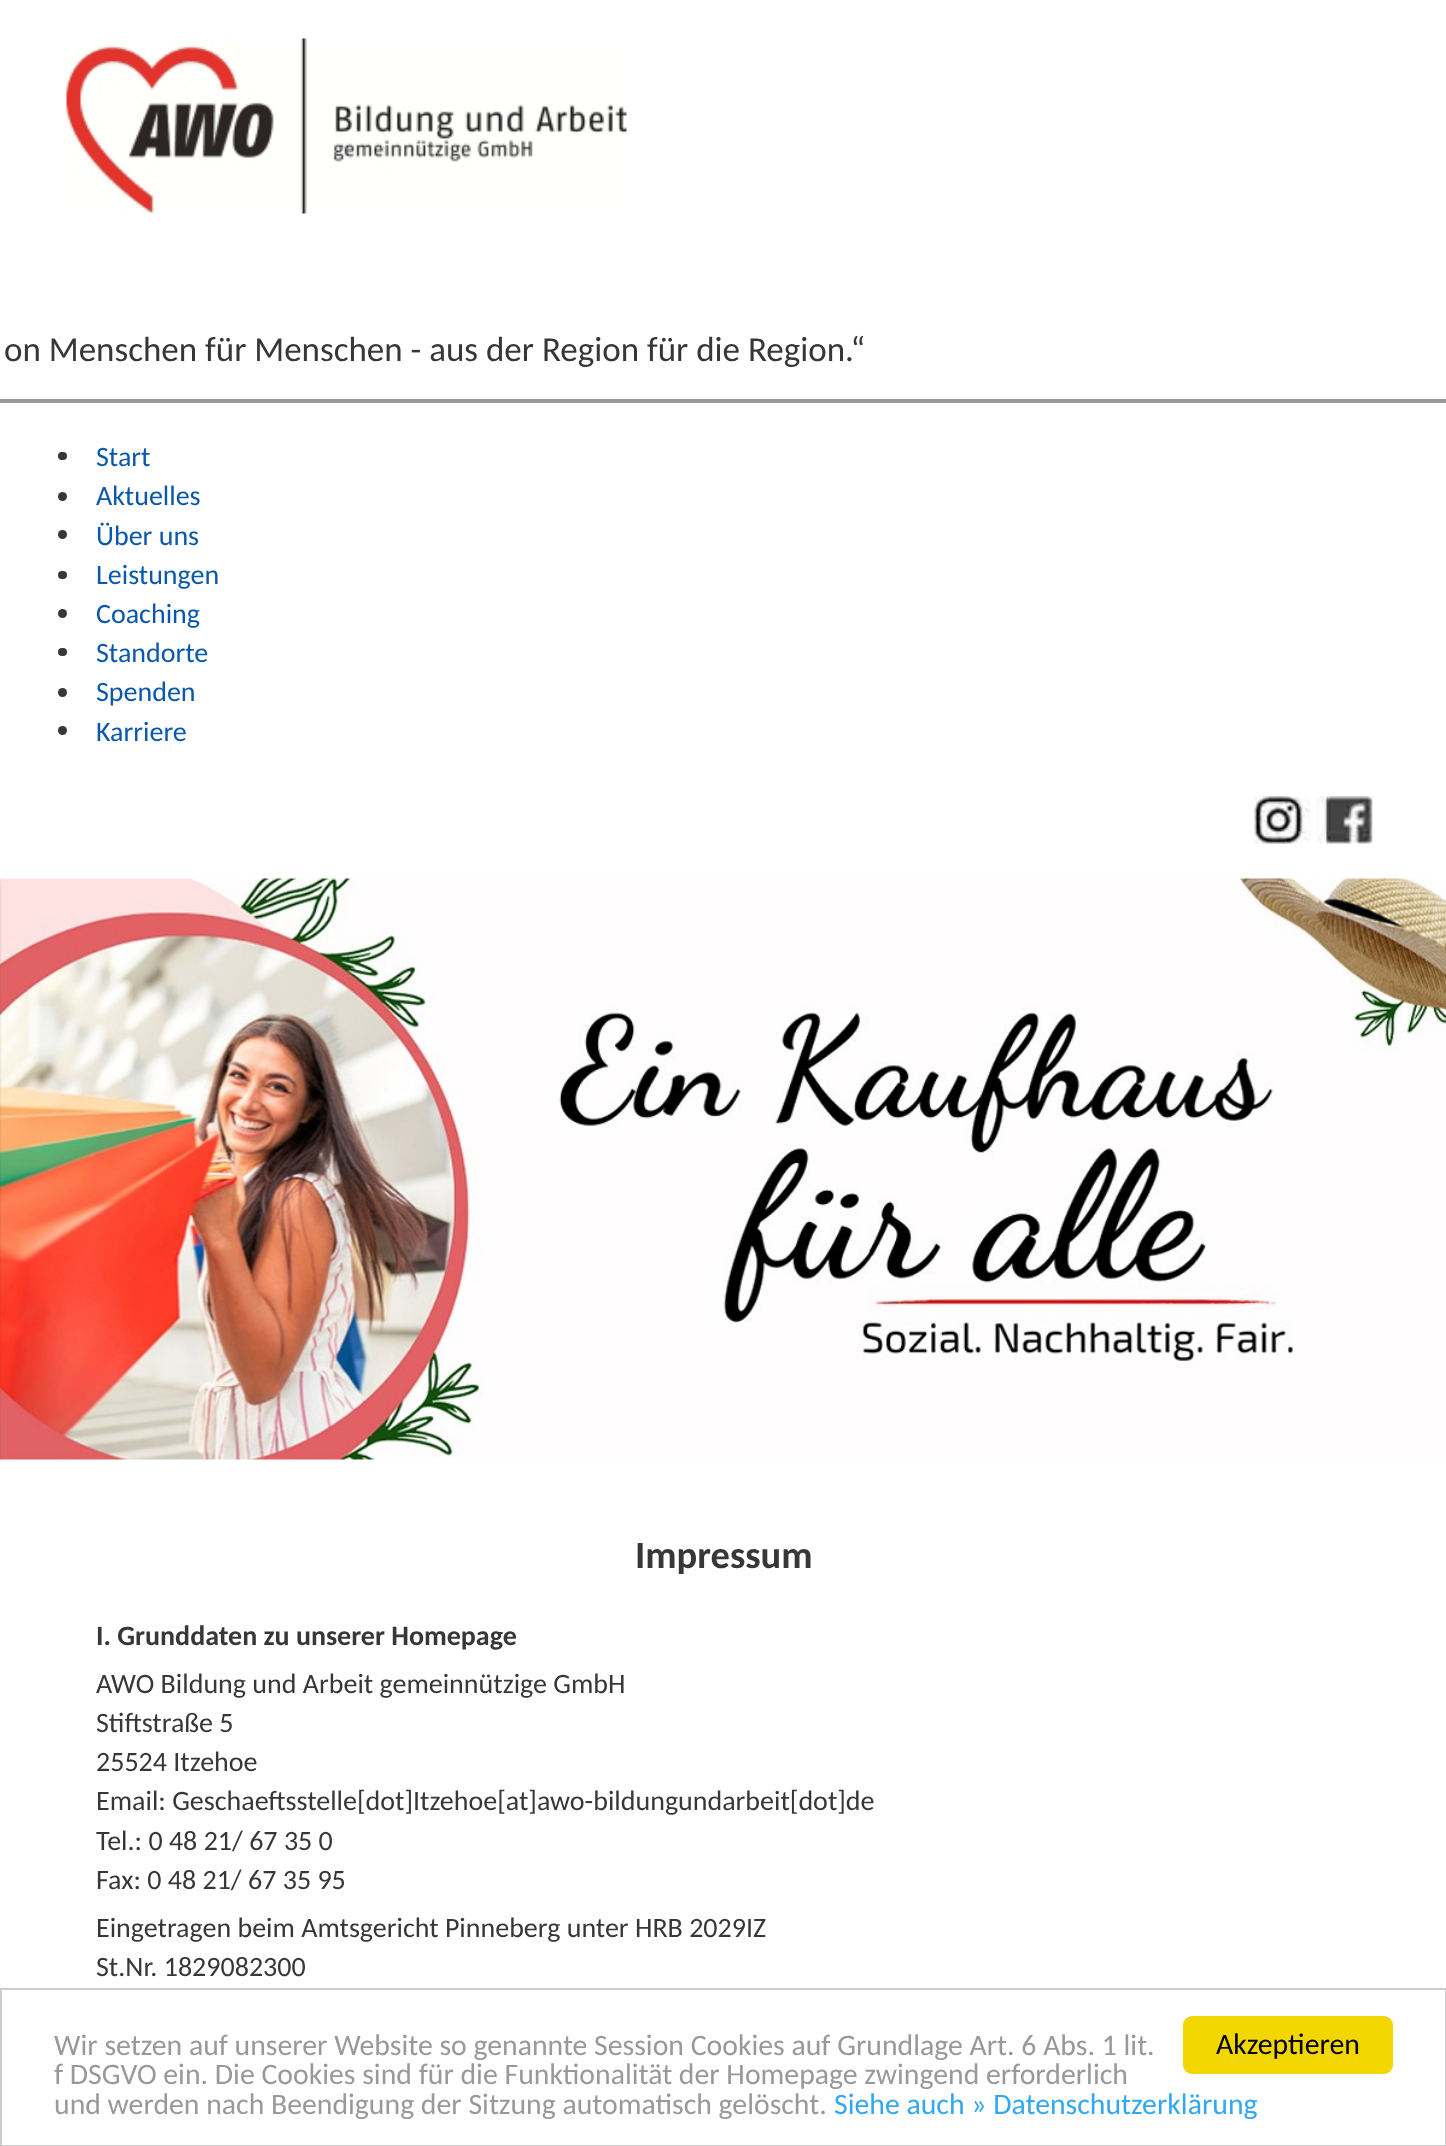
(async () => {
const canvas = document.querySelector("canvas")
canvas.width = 1446
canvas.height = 2146
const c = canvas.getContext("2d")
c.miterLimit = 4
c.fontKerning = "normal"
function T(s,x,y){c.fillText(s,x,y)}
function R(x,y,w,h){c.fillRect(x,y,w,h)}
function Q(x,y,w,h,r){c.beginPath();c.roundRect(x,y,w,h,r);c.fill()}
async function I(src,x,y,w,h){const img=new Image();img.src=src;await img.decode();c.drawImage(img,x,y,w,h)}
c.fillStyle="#fff"
R(0,0,1446,2146)
await I("1.png",66,38,561,177)
c.font="35px Carlito"
c.fillStyle="#373737"
T("on Menschen für Menschen - aus der Region für die Region.“",4,361)
c.fillStyle="#999"
R(0,399,1446,4)
c.fillStyle="#373737"
Q(58,452,9,8,4)
c.font="28px Carlito"
c.fillStyle="#0a58ab"
T("Start",96,466)
c.fillStyle="#373737"
c.beginPath()
c.arc(62.5,496.5,4.5,0,7)
c.fill()
c.fillStyle="#0a58ab"
T("Aktuelles",96,505)
c.fillStyle="#373737"
c.beginPath()
c.arc(62.5,534.5,4.5,0,7)
c.fill()
c.fillStyle="#0a58ab"
T("Über uns",96,545)
c.fillStyle="#373737"
Q(58,571,9,8,4)
c.fillStyle="#0a58ab"
T("Leistungen",96,584)
c.fillStyle="#373737"
c.beginPath()
c.arc(62.5,613.5,4.5,0,7)
c.fill()
c.fillStyle="#0a58ab"
T("Coaching",96,623)
c.fillStyle="#373737"
Q(58,648,9,8,4)
c.fillStyle="#0a58ab"
T("Standorte",96,662)
c.fillStyle="#373737"
c.beginPath()
c.arc(62.5,692.5,4.5,0,7)
c.fill()
c.fillStyle="#0a58ab"
T("Spenden",96,701)
c.fillStyle="#373737"
c.beginPath()
c.arc(62.5,730.5,4.5,0,7)
c.fill()
c.fillStyle="#0a58ab"
T("Karriere",96,741)
await I("2.png",1254,796,57,48)
await I("3.png",1316,796,57,48)
await I("4.png",0,878,1446,582)
c.font="bold 38.5px Carlito"
c.fillStyle="#373737"
T("Impressum",635,1568)
c.font="bold 28px Carlito"
T("I. Grunddaten zu unserer Homepage",96,1645)
c.font="28px Carlito"
T("AWO Bildung und Arbeit gemeinnützige GmbH",96,1693)
T("Stiftstraße 5",96,1732)
T("25524 Itzehoe",96,1771)
T("Email: Geschaeftsstelle[dot]Itzehoe[at]awo-bildungundarbeit[dot]de",96,1810)
T("Tel.: 0 48 21/ 67 35 0",96,1850)
T("Fax: 0 48 21/ 67 35 95",96,1889)
T("Eingetragen beim Amtsgericht Pinneberg unter HRB 2029IZ",96,1937)
T("St.Nr. 1829082300",96,1976)
c.strokeStyle="#ccc"
c.lineWidth=2
c.strokeRect(1,1989,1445,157)
c.font="29.75px Carlito"
c.fillStyle="#999"
T("Wir setzen auf unserer Website so genannte Session Cookies auf Grundlage Art. 6 Abs. 1 lit.",54,2055)
T("f DSGVO ein. Die Cookies sind für die Funktionalität der Homepage zwingend erforderlich",54,2084)
T("und werden nach Beendigung der Sitzung automatisch gelöscht.",54,2114)
c.fillStyle="#31a8f0"
T("Siehe auch » Datenschutzerklärung",834,2114)
c.fillStyle="#f1d600"
Q(1183,2016,210,58,9)
c.fillStyle="#000"
T("Akzeptieren",1216,2054)
})()
